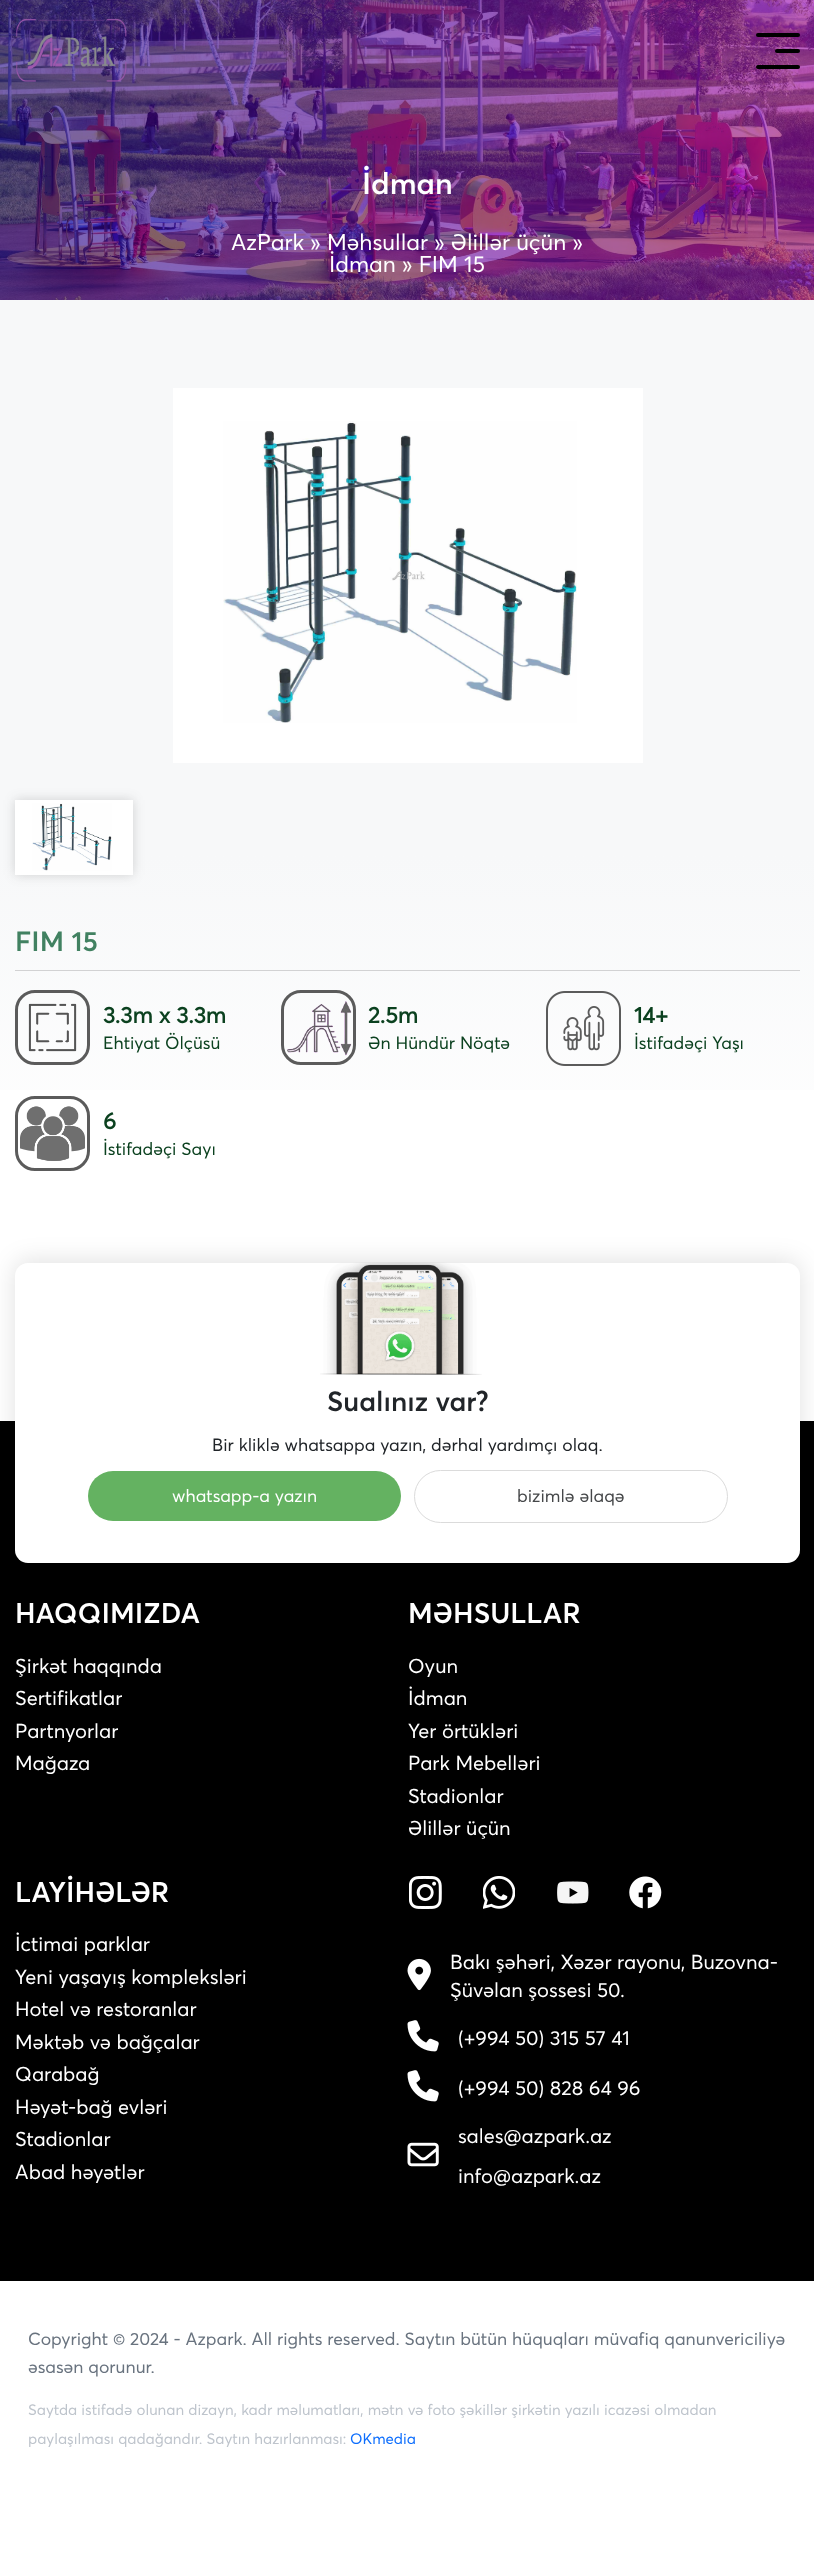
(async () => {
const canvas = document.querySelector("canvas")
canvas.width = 814
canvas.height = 2562
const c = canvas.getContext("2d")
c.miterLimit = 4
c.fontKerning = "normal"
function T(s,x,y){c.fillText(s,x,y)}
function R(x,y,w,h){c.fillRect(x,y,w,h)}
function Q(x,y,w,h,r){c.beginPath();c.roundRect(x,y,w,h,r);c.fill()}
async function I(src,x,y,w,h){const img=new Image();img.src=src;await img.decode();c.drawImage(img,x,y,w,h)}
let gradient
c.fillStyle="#fff"
R(0,0,814,2562)
await I("2.png",0,0,814,300)
await I("1.png",16,18,111,64)
c.fillStyle="#000"
Q(756,33,44,4,2)
Q(775,49,25,4,2)
Q(756,65,44,4,2)
c.font="600 30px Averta"
c.fillStyle="#fff"
T("İdman",362,194)
c.font="22.5px Averta"
T("AzPark » Məhsullar » Əlillər üçün »",231,250)
T("İdman » FIM 15",329,272)
gradient = c.createLinearGradient(408,1196,408,300)
gradient.addColorStop(0,"#fff")
gradient.addColorStop(.38,"#f7f8f9")
gradient.addColorStop(1,"#f7f8f9")
c.fillStyle = gradient
R(0,300,814,790)
c.fillStyle="#fff"
R(173,388,470,375)
await I("3.png",223,421,354,302)
c.fillStyle="#33333333"
c.filter="blur(6px)"
c.beginPath()
c.rect(15,800,118,75)
c.fill()
c.filter="none"
c.fillStyle="#fff"
R(15,800,118,75)
await I("4.png",32,803,80,68)
c.fillStyle="#d2d2d3"
R(15,970,785,1)
c.font="600 27.5px Averta"
c.fillStyle="#418161"
T("FIM 15",15,951)
c.beginPath()
c.roundRect(16.5,991.5,72,72,18.5)
c.strokeStyle="#5b5b5b"
c.lineWidth=3
c.stroke()
await I("5.png",28,1003,49,49)
c.font="bold 22.5px Averta"
c.fillStyle="#0b411f"
T("3.3m x 3.3m",103,1023)
c.font="17.5px Averta"
T("Ehtiyat Ölçüsü",103,1049)
c.beginPath()
c.roundRect(282.5,991.5,72,72,18.5)
c.stroke()
await I("6.png",287,1001,65,55)
c.font="bold 22.5px Averta"
T("2.5m",368,1023)
c.font="17.5px Averta"
T("Ən Hündür Nöqtə",368,1049)
await I("7.png",546,991,75,75)
c.font="bold 22.5px Averta"
T("14+",634,1023)
c.font="17.5px Averta"
T("İstifadəçi Yaşı",634,1049)
c.beginPath()
c.roundRect(16.5,1097.5,72,72,18.5)
c.stroke()
await I("8.png",20,1106,65,55)
c.font="bold 22.5px Averta"
T("6",103,1129)
c.font="17.5px Averta"
T("İstifadəçi Sayı",103,1155)
c.fillStyle="#000"
R(0,1421,814,860)
c.fillStyle="#0000001f"
c.filter="blur(12.5px)"
c.beginPath()
c.roundRect(15,1261,785,300,13)
c.fill()
c.filter="none"
c.fillStyle="#fff"
Q(15,1263,785,300,13)
await I("9.png",320,1262,162,113)
c.font="600 27.5px Averta"
c.fillStyle="#212529"
T("Sualınız var?",327,1411)
c.font="17.5px Averta"
T("Bir kliklə whatsappa yazın, dərhal yardımçı olaq.",212,1451)
c.fillStyle="#64b261"
Q(88,1471,313,50,25)
c.fillStyle="#fff"
T("whatsapp-a yazın",172,1502)
c.beginPath()
c.roundRect(414.5,1470.5,313,52,26)
c.strokeStyle="#dbdbdb"
c.lineWidth=1
c.stroke()
c.fillStyle="#454749"
T("bizimlə əlaqə",517,1502)
c.font="600 28px Averta"
c.fillStyle="#fff"
T("HAQQIMIZDA",15,1623)
c.font="20px Averta"
T("Şirkət haqqında",15,1673)
T("Sertifikatlar",15,1705)
T("Partnyorlar",15,1738)
T("Mağaza",15,1770)
c.font="600 28px Averta"
T("MƏHSULLAR",408,1623)
c.font="20px Averta"
T("Oyun",408,1673)
T("İdman",408,1705)
T("Yer örtükləri",408,1738)
T("Park Mebelləri",408,1770)
T("Stadionlar",408,1803)
T("Əlillər üçün",408,1835)
c.font="600 28px Averta"
T("LAYİHƏLƏR",15,1902)
c.font="20px Averta"
T("İctimai parklar",15,1951)
T("Yeni yaşayış kompleksləri",15,1984)
T("Hotel və restoranlar",15,2016)
T("Məktəb və bağçalar",15,2049)
T("Qarabağ",15,2081)
T("Həyət-bağ evləri",15,2114)
T("Stadionlar",15,2146)
T("Abad həyətlər",15,2179)
await I("10.png",409,1876,33,33)
await I("11.png",483,1876,32,33)
await I("12.png",557,1881,32,23)
await I("13.png",629,1876,33,33)
await I("14.png",407,1958,24,33)
T("Bakı şəhəri, Xəzər rayonu, Buzovna-",450,1969)
T("Şüvəlan şossesi 50.",450,1997)
await I("15.png",407,2020,32,32)
T("(+994 50) 315 57 41",458,2045)
await I("15.png",407,2070,32,32)
T("(+994 50) 828 64 96",458,2095)
await I("16.png",407,2142,32,25)
T("sales@azpark.az",458,2143)
T("info@azpark.az",458,2183)
c.font="17.5px Averta"
c.fillStyle="#69737f"
T("Copyright © 2024 - Azpark. All rights reserved. Saytın bütün hüquqları müvafiq qanunvericiliyə",28,2345)
T("əsasən qorunur.",28,2373)
c.font="15px Averta"
c.fillStyle="#bec4cc"
T("Saytda istifadə olunan dizayn, kadr məlumatları, mətn və foto şəkillər şirkətin yazılı icazəsi olmadan",28,2415)
T("paylaşılması qadağandır. Saytın hazırlanması:",28,2444)
c.fillStyle="#0d6efd"
T("OKmedia",350,2444)
})()
